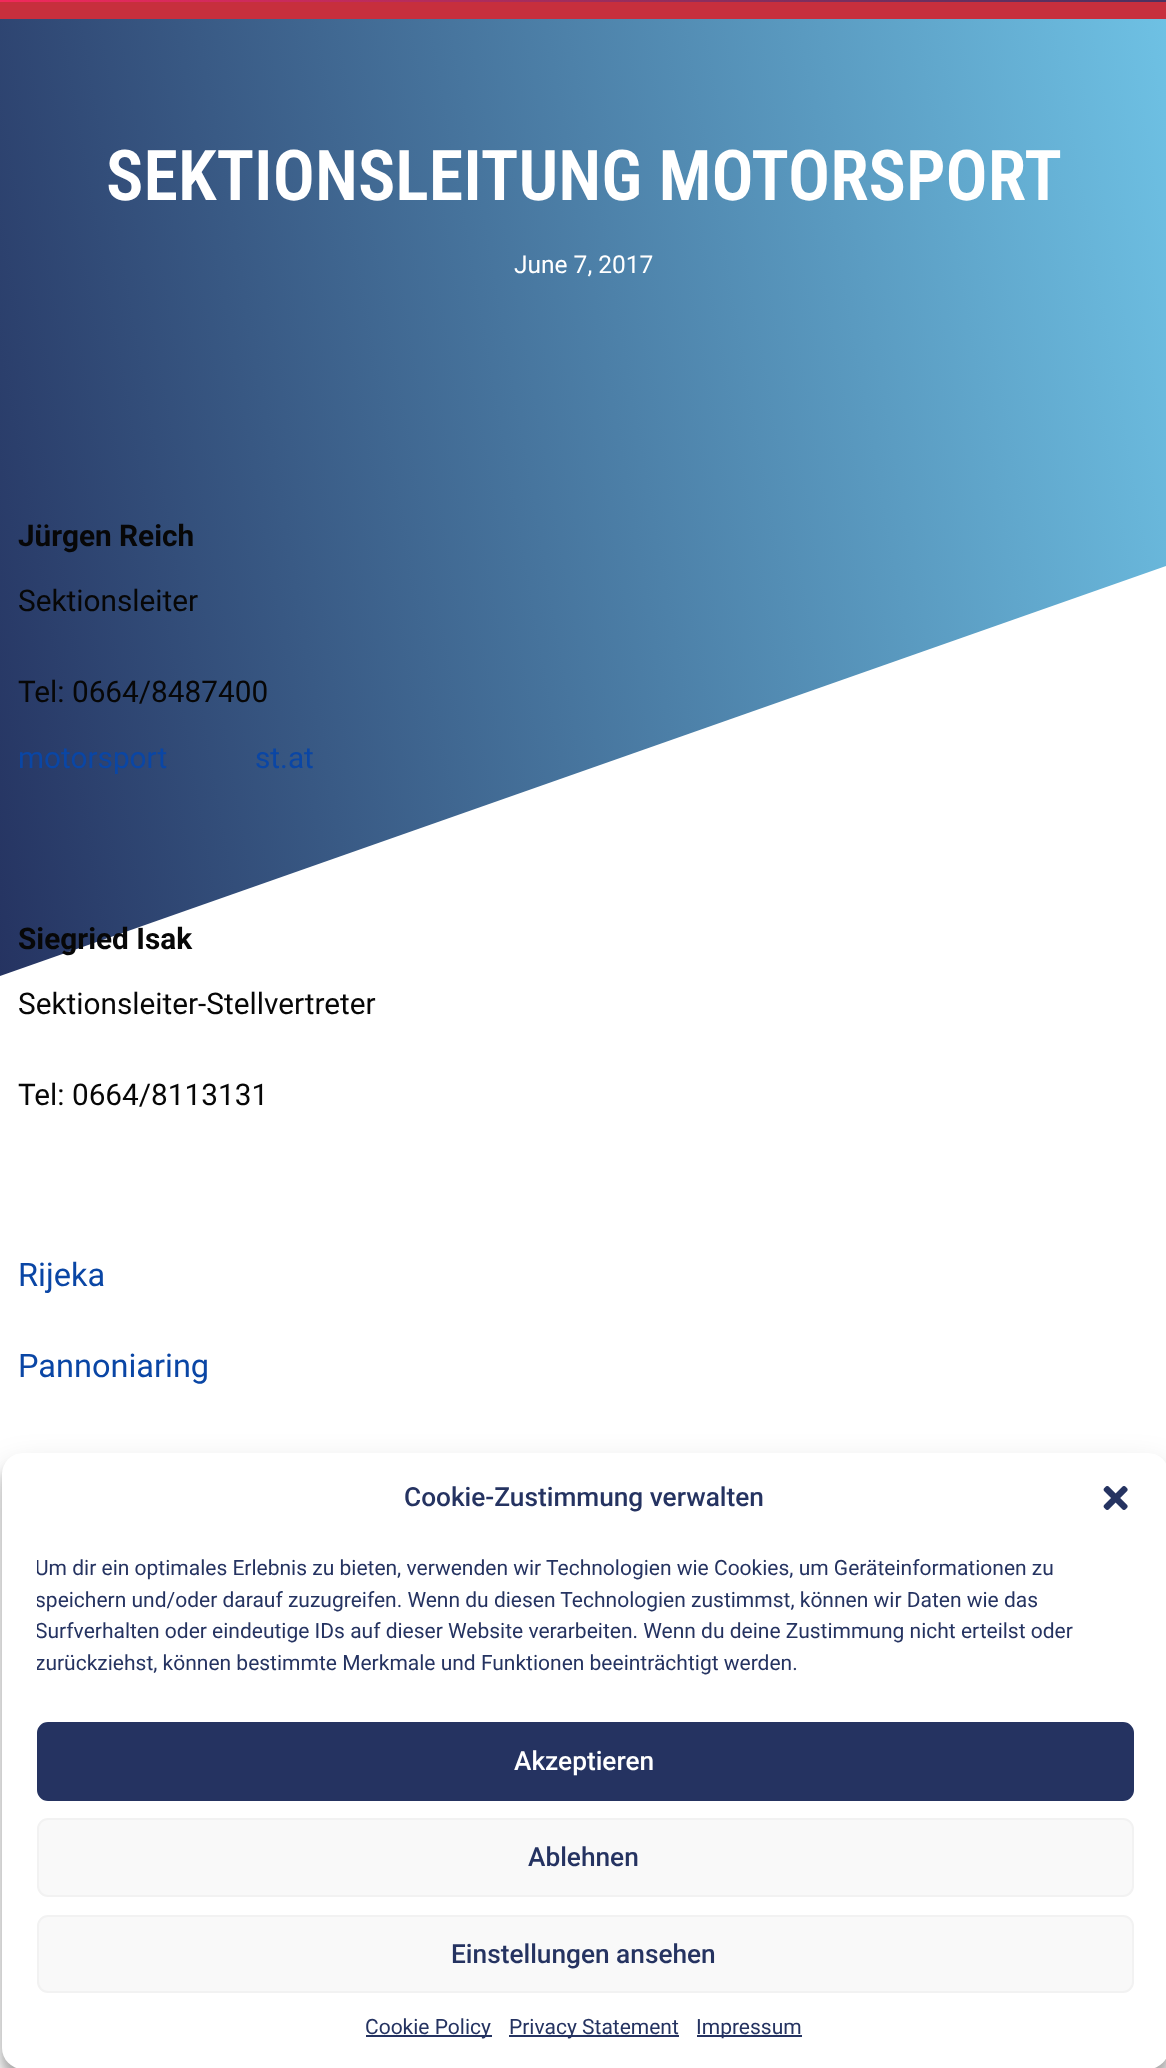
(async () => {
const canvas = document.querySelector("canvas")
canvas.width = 1166
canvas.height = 2068
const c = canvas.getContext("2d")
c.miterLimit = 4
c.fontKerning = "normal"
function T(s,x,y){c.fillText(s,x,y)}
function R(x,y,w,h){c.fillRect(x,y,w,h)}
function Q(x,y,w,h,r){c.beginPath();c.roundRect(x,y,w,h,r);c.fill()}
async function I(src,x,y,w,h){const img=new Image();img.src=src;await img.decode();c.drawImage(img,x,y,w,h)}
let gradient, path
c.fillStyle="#fff"
R(0,0,1166,2068)
gradient = c.createLinearGradient(605,-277,562,71)
gradient.addColorStop(.5,"#253361")
gradient.addColorStop(1,"#f2295b")
c.fillStyle = gradient
R(0,0,1166,2)
c.fillStyle="#c72f3d"
R(0,2,1166,17)
gradient = c.createLinearGradient(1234,396,-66,625)
gradient.addColorStop(0,"#6ec1e4")
gradient.addColorStop(1,"#253361")
c.fillStyle = gradient
R(0,19,1166,957)
c.font="600 70px Roboto Condensed"
c.fillStyle="#fff"
T("SEKTIONSLEITUNG MOTORSPORT",106,200)
c.font="24.5px Roboto"
T("June 7, 2017",514,273)
path = new Path2D("M0 976v27h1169v-438z")
c.fill(path)
c.font="bold 29.75px Roboto"
c.fillStyle="#070707"
T("Jürgen Reich",18,546)
c.font="29.75px Roboto"
T("Sektionsleiter",18,611)
T("Tel: 0664/8487400",18,702)
c.fillStyle="#0a46a5"
T("motorsport",18,768)
T("st.at",255,768)
c.font="bold 29.75px Roboto"
c.fillStyle="#070707"
T("Siegried Isak",18,949)
c.font="29.75px Roboto"
T("Sektionsleiter-Stellvertreter",18,1014)
T("Tel: 0664/8113131",18,1105)
c.font="32.5px Roboto"
c.fillStyle="#0a46a5"
T("Rijeka",18,1286)
T("Pannoniaring",18,1377)
c.fillStyle="#0000003b"
c.filter="blur(5px)"
c.beginPath()
c.roundRect(2,1463,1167,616,21)
c.fill()
c.filter="none"
c.fillStyle="#00000030"
c.filter="blur(17.5px)"
c.beginPath()
c.roundRect(2,1470,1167,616,21)
c.fill()
c.filter="none"
c.fillStyle="#fff"
Q(2,1453,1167,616,21)
c.font="500 26.25px Roboto"
c.fillStyle="#253361"
T("Cookie-Zustimmung verwalten",404,1506)
await I("1.png",1103,1486,25,24)
c.save()
c.beginPath()
c.rect(37,1552,1097,135)
c.clip()
c.font="21px Roboto"
T("Um dir ein optimales Erlebnis zu bieten, verwenden wir Technologien wie Cookies, um Geräteinformationen zu",35,1575)
T("speichern und/oder darauf zuzugreifen. Wenn du diesen Technologien zustimmst, können wir Daten wie das",35,1607)
T("Surfverhalten oder eindeutige IDs auf dieser Website verarbeiten. Wenn du deine Zustimmung nicht erteilst oder",35,1638)
T("zurückziehst, können bestimmte Merkmale und Funktionen beeinträchtigt werden.",35,1670)
c.restore()
c.beginPath()
c.roundRect(38,1723,1095,77,10)
c.fill()
c.strokeStyle="#253361"
c.lineWidth=2
c.stroke()
c.fillStyle="#fff"
T("Akzeptieren",514,1770)
c.fillStyle="#f9f9f9"
c.beginPath()
c.roundRect(38,1819,1095,77,10)
c.fill()
c.strokeStyle="#f2f2f2"
c.stroke()
c.fillStyle="#253361"
T("Ablehnen",528,1866)
c.fillStyle="#f9f9f9"
c.beginPath()
c.roundRect(38,1916,1095,76,10)
c.fill()
c.stroke()
c.fillStyle="#253361"
T("Einstellungen ansehen",451,1963)
R(366,2035,126,2)
c.font="21px Roboto"
T("Cookie Policy",365,2034)
R(509,2035,170,2)
T("Privacy Statement",509,2034)
R(697,2035,105,2)
T("Impressum",696,2034)
})()
